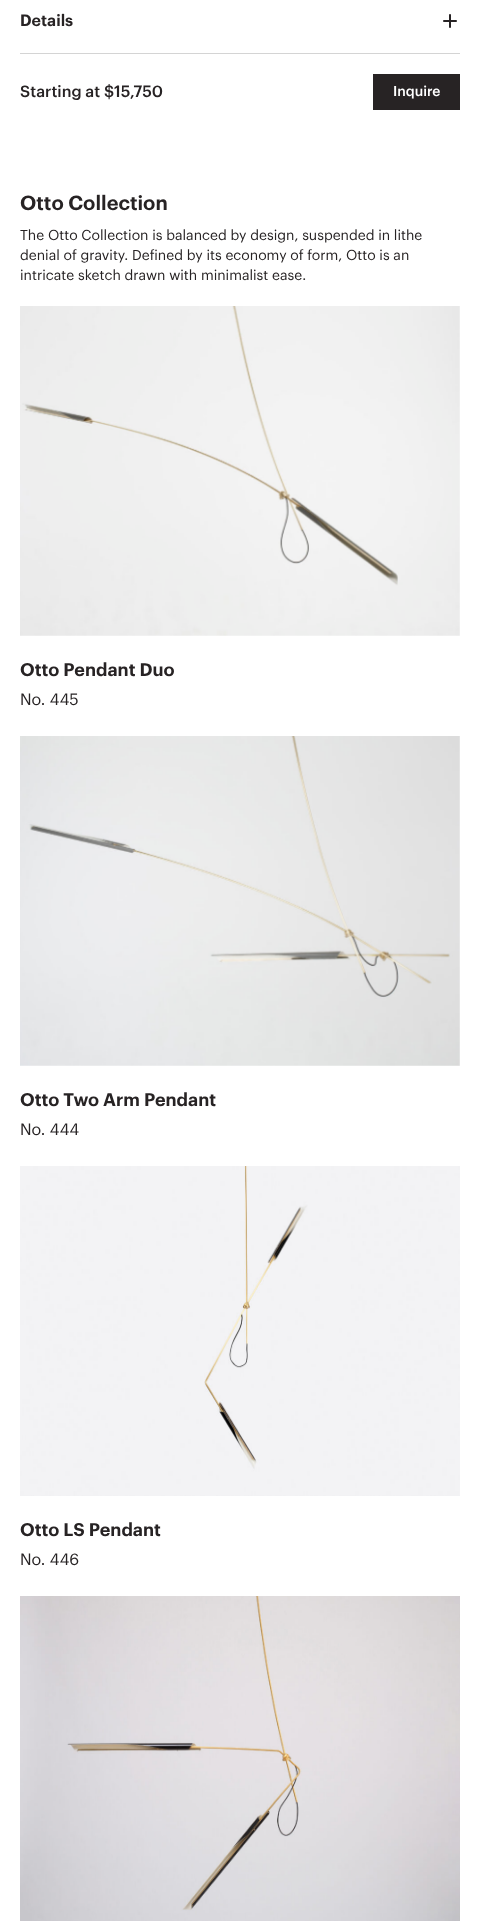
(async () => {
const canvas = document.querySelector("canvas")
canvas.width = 480
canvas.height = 1921
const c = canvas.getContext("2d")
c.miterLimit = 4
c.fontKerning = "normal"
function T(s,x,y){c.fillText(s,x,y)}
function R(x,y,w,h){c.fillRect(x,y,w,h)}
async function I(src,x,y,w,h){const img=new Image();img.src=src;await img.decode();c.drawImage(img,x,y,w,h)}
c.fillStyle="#fff"
R(0,0,480,1921)
c.fillStyle="#d4d4d4"
R(20,53,440,1)
c.font="600 16px Graphik"
c.fillStyle="#272324"
T("Details",20,26)
await I("1.png",443,14,14,14)
c.font="500 16px Graphik"
T("Starting at $15,750",20,97)
R(373,74,87,36)
c.font="500 14px Graphik"
c.fillStyle="#fff"
T("Inquire",393,96)
c.font="600 20px Graphik"
c.fillStyle="#272324"
T("Otto Collection",20,210)
c.font="14px Graphik"
T("The Otto Collection is balanced by design, suspended in lithe",20,240)
T("denial of gravity. Defined by its economy of form, Otto is an",20,260)
T("intricate sketch drawn with minimalist ease.",20,280)
await I("2.png",20,306,440,330)
c.font="600 18px Graphik"
T("Otto Pendant Duo",20,676)
c.font="16px Graphik"
T("No. 445",20,705)
await I("3.png",20,736,440,330)
c.font="600 18px Graphik"
T("Otto Two Arm Pendant",20,1106)
c.font="16px Graphik"
T("No. 444",20,1135)
await I("4.png",20,1166,440,330)
c.font="600 18px Graphik"
T("Otto LS Pendant",20,1536)
c.font="16px Graphik"
T("No. 446",20,1565)
await I("5.png",20,1596,440,325)
})()
